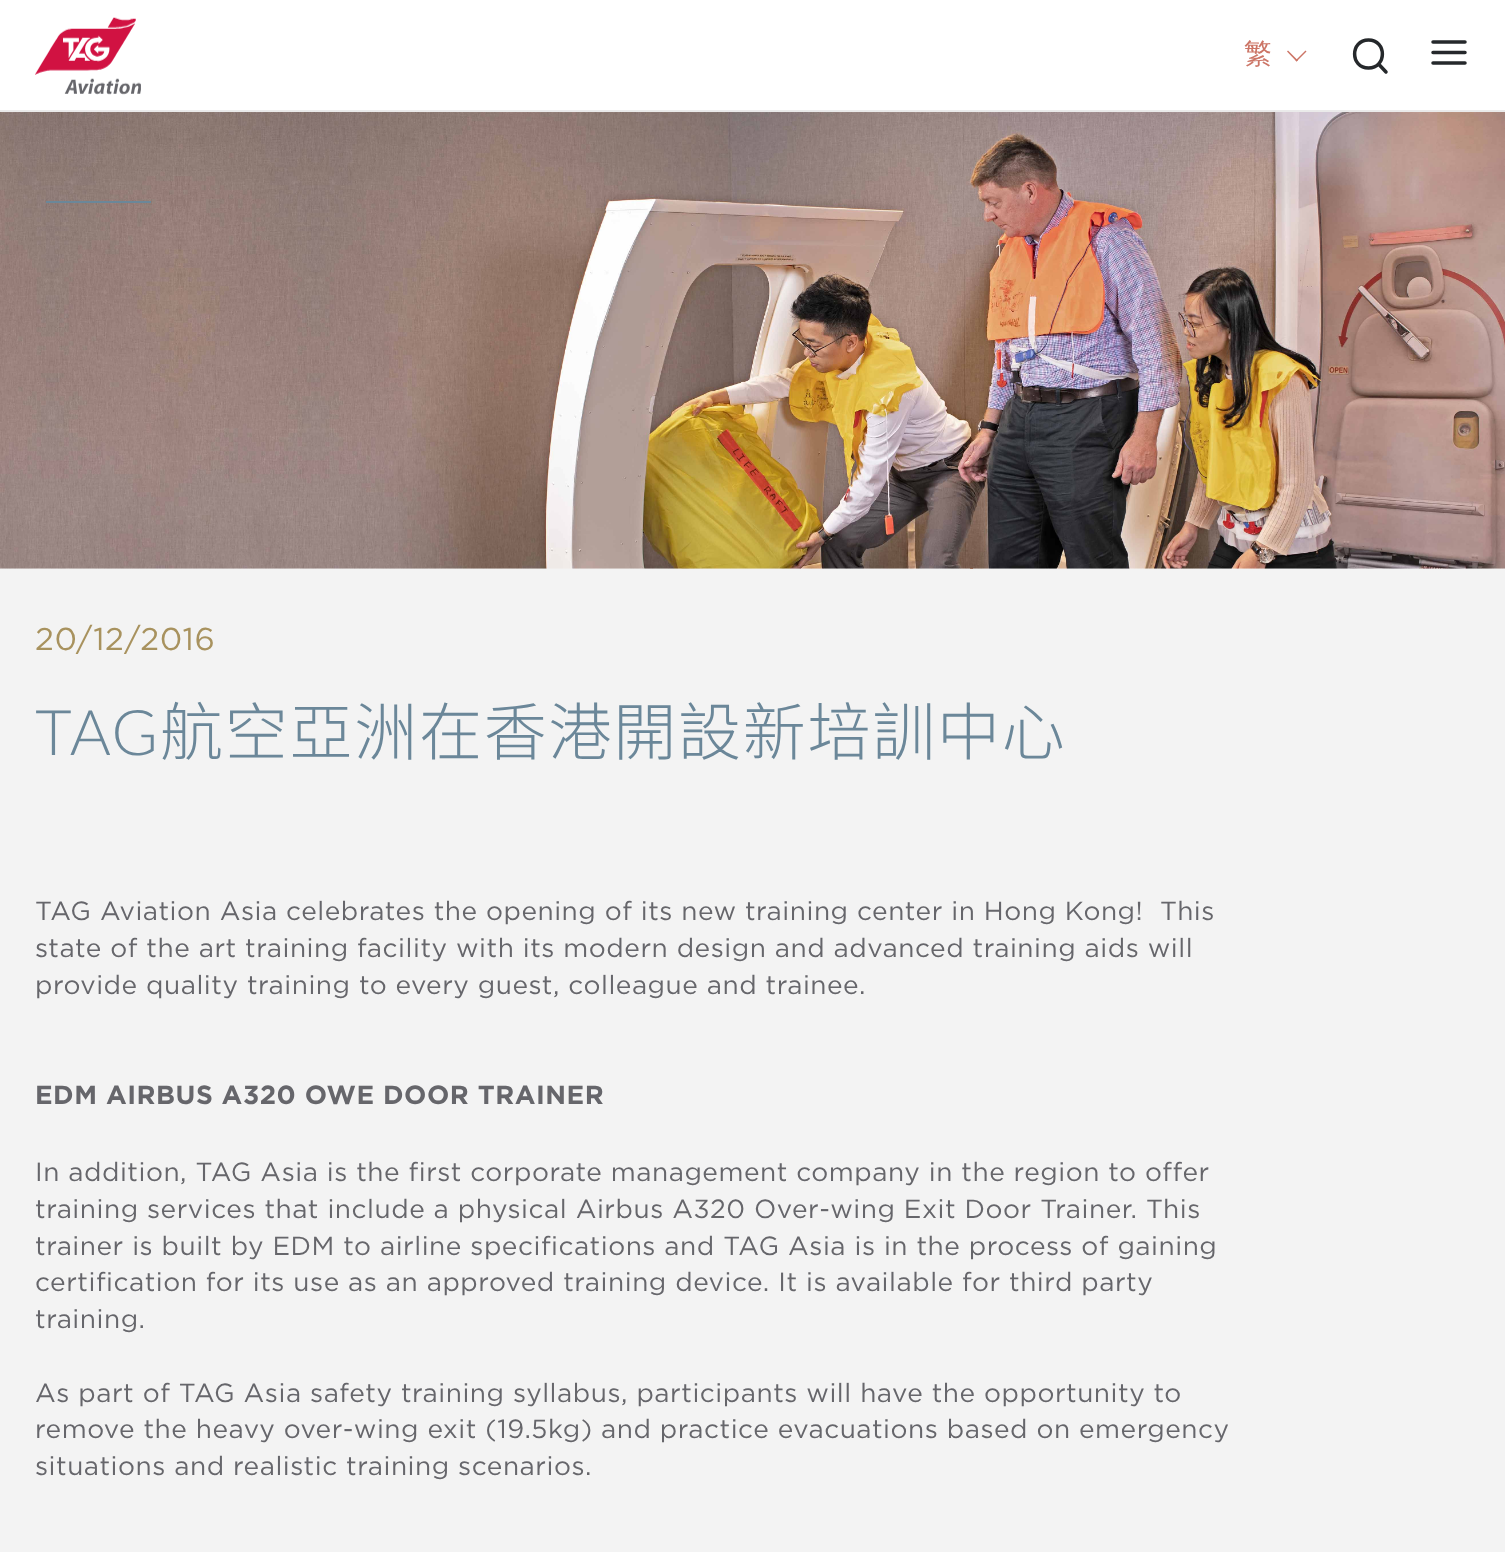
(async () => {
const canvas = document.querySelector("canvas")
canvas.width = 1505
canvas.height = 1552
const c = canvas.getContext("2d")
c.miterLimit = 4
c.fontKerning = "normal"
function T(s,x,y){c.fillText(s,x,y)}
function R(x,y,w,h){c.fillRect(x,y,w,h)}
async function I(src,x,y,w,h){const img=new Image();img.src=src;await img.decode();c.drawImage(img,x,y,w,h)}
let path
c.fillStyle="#f3f3f3"
R(0,0,1505,1552)
path = new Path2D("M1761-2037l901 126.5c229.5 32.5 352.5 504.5 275 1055l-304 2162.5c-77 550.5-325.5 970.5-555 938.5l-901-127c-229.5-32-352.5-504.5-275-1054.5l304-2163c77.5-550 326-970 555-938z")
c.strokeStyle="#a96f44"
c.lineWidth=2.5
c.stroke(path)
path = new Path2D("M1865-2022.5l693 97.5c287 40.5 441 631 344 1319l-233.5 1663.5c-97 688.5-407.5 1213.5-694.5 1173l-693-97c-286.5-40.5-440.5-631-344-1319l234-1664c96.5-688 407.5-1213 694-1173z")
c.strokeStyle="#cc7566b3"
c.stroke(path)
path = new Path2D("M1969-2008l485 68.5c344.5 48.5 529 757 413 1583l-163.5 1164.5c-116 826-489.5 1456.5-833.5 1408l-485-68c-344-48.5-529-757.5-413-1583l164-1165c116-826 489-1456 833-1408z")
c.strokeStyle="#a96f444d"
c.stroke(path)
c.fillStyle="#fff"
R(0,0,1505,110)
c.fillStyle="#eaeaea"
R(0,110,1505,2)
await I("1.png",35,17,106,78)
c.font="500 28px WenQuanYi Zen Hei"
c.fillStyle="#cc7566"
T("繁",1244,63)
path = new Path2D("M1295.5 60.5l10-10l1 1l-10 10z")
c.fill(path)
path = new Path2D("M1287 51.5l1-1l10 10l-1.5 1z")
c.fill(path)
path = new Path2D("M1368.5 68c18.5 0 18.5-28 0-28c-18.5 0-18.5 28 0 28zm17.5 4l-7.5-8")
c.strokeStyle="#25282b"
c.lineWidth=3.5
c.lineCap="round"
c.lineJoin="round"
c.stroke(path)
path = new Path2D("M1433 52.5h32m-32-10.5h32m-32 21h32")
c.stroke(path)
await I("2.png",0,112,1505,457)
c.fillStyle="#6b8799"
R(46,201,105,2)
c.fillStyle="#f3f3f3"
R(877,569,109,983)
c.letterSpacing="0.53px"
c.font="31.5px Gotham"
c.fillStyle="#a8925e"
T("20/12/2016",35,650)
c.letterSpacing="1.75px"
c.font="300 63px Lato"
c.fillStyle="#6b8799"
T("TAG",35,755)
c.font="100 63px Noto Sans SC"
T("航空亞洲在香港開設新培訓中心",160,755)
c.letterSpacing="0.53px"
c.font="26.25px Gotham"
c.fillStyle="#66666b"
T("TAG Aviation Asia celebrates the opening of its new training center in Hong Kong!  This",35,920)
T("state of the art training facility with its modern design and advanced training aids will",35,957)
T("provide quality training to every guest, colleague and trainee.",35,994)
c.font="bold 26.25px Gotham"
T("EDM AIRBUS A320 OWE DOOR TRAINER",35,1104)
c.font="26.25px Gotham"
T("In addition, TAG Asia is the first corporate management company in the region to offer",35,1181)
T("training services that include a physical Airbus A320 Over-wing Exit Door Trainer. This",35,1218)
T("trainer is built by EDM to airline specifications and TAG Asia is in the process of gaining",35,1255)
T("certification for its use as an approved training device. It is available for third party",35,1291)
T("training.",35,1328)
T("As part of TAG Asia safety training syllabus, participants will have the opportunity to",35,1402)
T("remove the heavy over-wing exit (19.5kg) and practice evacuations based on emergency",35,1438)
T("situations and realistic training scenarios.",35,1475)
})()
